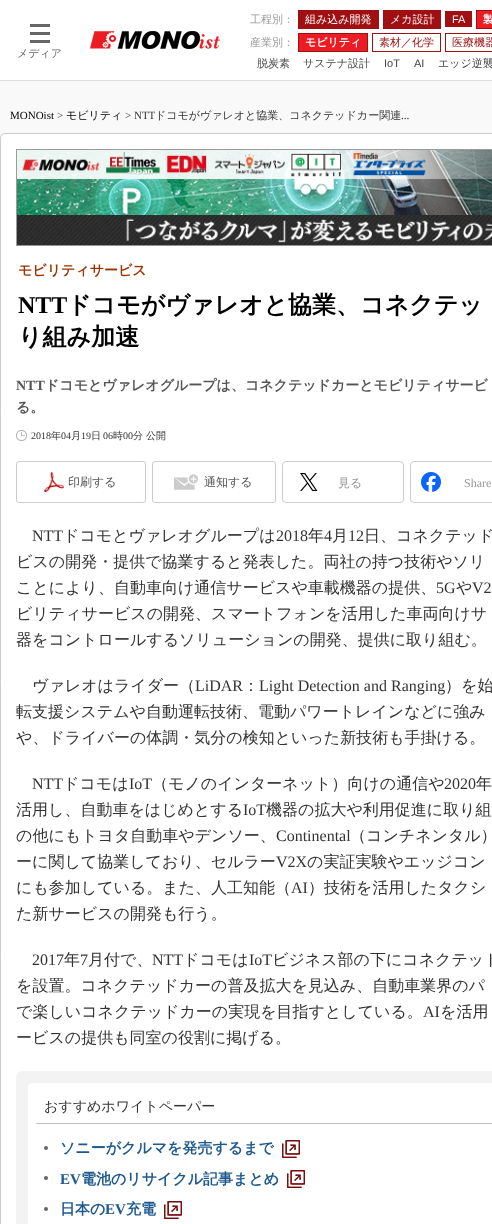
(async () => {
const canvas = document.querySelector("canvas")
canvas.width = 492
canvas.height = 1224
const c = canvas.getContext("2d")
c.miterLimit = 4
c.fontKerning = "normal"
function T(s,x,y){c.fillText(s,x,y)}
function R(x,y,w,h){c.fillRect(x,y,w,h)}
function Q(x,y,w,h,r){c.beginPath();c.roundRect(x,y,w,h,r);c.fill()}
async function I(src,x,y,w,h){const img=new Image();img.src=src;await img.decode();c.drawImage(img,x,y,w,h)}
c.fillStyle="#f9f9f9"
R(0,0,492,1224)
c.fillStyle="#fff"
R(0,0,492,80)
c.fillStyle="#ddd"
R(0,80,492,1)
await I("1.png",90,31,130,18)
c.font="500 11px WenQuanYi Zen Hei"
c.fillStyle="#999"
T("工程別：",250,23)
c.fillStyle="#a01013"
R(298,10,81,19)
c.fillStyle="#fff"
T("組み込み開発",305,23)
c.fillStyle="#a01013"
R(383,10,58,19)
c.fillStyle="#fff"
T("メカ設計",390,23)
c.fillStyle="#a01013"
R(445,11,27,16)
c.font="11px Liberation Sans"
c.fillStyle="#fff"
T("FA",452,23)
c.fillStyle="#a01013"
R(476,10,16,19)
c.fillStyle="#ec1c24"
R(477,11,15,17)
c.font="bold 11px WenQuanYi Zen Hei"
c.fillStyle="#fff"
T("製",483,23)
c.font="500 11px WenQuanYi Zen Hei"
c.fillStyle="#999"
T("産業別：",250,46)
c.strokeStyle="#a01013"
c.strokeRect(298.5,33.5,69,18)
c.fillStyle="#ec1c24"
R(299,34,68,17)
c.font="bold 11px WenQuanYi Zen Hei"
c.fillStyle="#fff"
T("モビリティ",305,46)
c.strokeRect(372.5,33.5,68,18)
c.font="500 11px WenQuanYi Zen Hei"
c.fillStyle="#a01013"
T("素材／化学",379,46)
c.strokeRect(445.5,33.5,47,18)
T("医療機器",452,46)
c.fillStyle="#444"
T("脱炭素",257,67)
T("サステナ設計",303,67)
c.font="11px Liberation Sans"
T("IoT",384,67)
T("AI",414,67)
c.font="500 11px WenQuanYi Zen Hei"
T("エッジ逆襲",438,67)
c.fillStyle="#666"
R(30,24,20,3)
R(30,32,20,3)
R(30,40,20,3)
T("メディア",17,57)
c.font="11px Liberation Serif"
c.fillStyle="#000"
T("MONOist",10,119)
c.fillStyle="#333"
T(">",57,119)
c.font="500 11px WenQuanYi Zen Hei"
c.fillStyle="#000"
T("モビリティ",66,119)
c.font="11px Liberation Serif"
c.fillStyle="#333"
T("> NTT",125,119)
c.font="500 11px WenQuanYi Zen Hei"
T("ドコモがヴァレオと協業、コネクテッドカー関連",155,119)
c.font="11px Liberation Serif"
T("...",401,119)
c.fillStyle="#fff"
c.beginPath()
c.roundRect(.5,133.5,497,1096,4.5)
c.fill()
c.strokeStyle="#ccc"
c.stroke()
await I("2.png",16,149,476,97)
c.font="bold 14px WenQuanYi Zen Hei"
c.fillStyle="#930"
T("モビリティサービス",18,275)
c.font="bold 24px Liberation Serif"
c.fillStyle="#000"
T("NTT",18,313)
c.font="bold 24px WenQuanYi Zen Hei"
T("ドコモがヴァレオと協業、コネクテッ",67,313)
T("り組み加速",18,345)
c.font="bold 14px Liberation Serif"
c.fillStyle="#555"
T("NTT",16,390)
c.font="bold 14px WenQuanYi Zen Hei"
T("ドコモとヴァレオグループは、コネクテッドカーとモビリティサービ",45,390)
T("る。",16,412)
await I("3.png",16,430,11,11)
c.font="10px Liberation Serif"
c.fillStyle="#333"
T("2018",31,439)
c.font="500 10px WenQuanYi Zen Hei"
T("年",51,439)
c.font="10px Liberation Serif"
T("04",61,439)
c.font="500 10px WenQuanYi Zen Hei"
T("月",71,439)
c.font="10px Liberation Serif"
T("19",81,439)
c.font="500 10px WenQuanYi Zen Hei"
T("日",91,439)
c.font="10px Liberation Serif"
T("06",103,439)
c.font="500 10px WenQuanYi Zen Hei"
T("時",113,439)
c.font="10px Liberation Serif"
T("00",123,439)
c.font="500 10px WenQuanYi Zen Hei"
T("分 公開",133,439)
await I("4.png",44,472,20,20)
c.beginPath()
c.roundRect(16.5,461.5,129,41,2.5)
c.stroke()
c.font="500 12px WenQuanYi Zen Hei"
c.fillStyle="#555"
T("印刷する",68,486)
await I("5.png",174,474,24,16)
c.beginPath()
c.roundRect(152.5,461.5,123,41,2.5)
c.stroke()
T("通知する",204,486)
await I("6.png",300,473,18,18)
c.beginPath()
c.roundRect(282.5,461.5,121,41,3.5)
c.stroke()
c.fillStyle="#999"
T("見る",338,487)
await I("7.png",421,472,20,20)
c.beginPath()
c.roundRect(410.5,461.5,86,41,3.5)
c.stroke()
c.font="12px Liberation Serif"
T("Share",464,487)
c.font="16px Liberation Serif"
c.fillStyle="#333"
T("NTT",32,541)
c.font="500 16px WenQuanYi Zen Hei"
T("ドコモとヴァレオグループは",63,541)
c.font="16px Liberation Serif"
T("2018",276,541)
c.font="500 16px WenQuanYi Zen Hei"
T("年",308,541)
c.font="16px Liberation Serif"
T("4",324,541)
c.font="500 16px WenQuanYi Zen Hei"
T("月",332,541)
c.font="16px Liberation Serif"
T("12",348,541)
c.font="500 16px WenQuanYi Zen Hei"
T("日、コネクテッド",364,541)
T("ビスの開発・提供で協業すると発表した。両社の持つ技術やソリ",16,567)
T("ことにより、自動車向け通信サービスや車載機器の提供、",16,593)
c.font="16px Liberation Serif"
T("5G",436,593)
c.font="500 16px WenQuanYi Zen Hei"
T("や",456,593)
c.font="16px Liberation Serif"
T("V2",472,593)
c.font="500 16px WenQuanYi Zen Hei"
T("ビリティサービスの開発、スマートフォンを活用した車両向けサ",16,619)
T("器をコントロールするソリューションの開発、提供に取り組む。",16,645)
T("ヴァレオはライダー（",32,691)
c.font="16px Liberation Serif"
T("LiDAR",195,691)
c.font="500 16px WenQuanYi Zen Hei"
T("：",243,691)
c.font="16px Liberation Serif"
T("Light Detection and Ranging",259,691)
c.font="500 16px WenQuanYi Zen Hei"
T("）を始",445,691)
T("転支援システムや自動運転技術、電動パワートレインなどに強み",16,717)
T("や、ドライバーの体調・気分の検知といった新技術も手掛ける。",16,743)
c.font="16px Liberation Serif"
T("NTT",32,789)
c.font="500 16px WenQuanYi Zen Hei"
T("ドコモは",63,789)
c.font="16px Liberation Serif"
T("IoT",129,789)
c.font="500 16px WenQuanYi Zen Hei"
T("（モノのインターネット）向けの通信や",152,789)
c.font="16px Liberation Serif"
T("2020",444,789)
c.font="500 16px WenQuanYi Zen Hei"
T("年",476,789)
T("活用し、自動車をはじめとする",16,815)
c.font="16px Liberation Serif"
T("IoT",243,815)
c.font="500 16px WenQuanYi Zen Hei"
T("機器の拡大や利用促進に取り組",266,815)
T("の他にもトヨタ自動車やデンソー、",16,841)
c.font="16px Liberation Serif"
T("Continental",276,841)
c.font="500 16px WenQuanYi Zen Hei"
T("（コンチネンタル）",350,841)
T("ーに関して協業しており、セルラー",16,867)
c.font="16px Liberation Serif"
T("V2X",276,867)
c.font="500 16px WenQuanYi Zen Hei"
T("の実証実験やエッジコン",307,867)
T("にも参加している。また、人工知能（",16,893)
c.font="16px Liberation Serif"
T("AI",291,893)
c.font="500 16px WenQuanYi Zen Hei"
T("）技術を活用したタクシ",308,893)
T("た新サービスの開発も行う。",16,919)
c.font="16px Liberation Serif"
T("2017",32,965)
c.font="500 16px WenQuanYi Zen Hei"
T("年",64,965)
c.font="16px Liberation Serif"
T("7",80,965)
c.font="500 16px WenQuanYi Zen Hei"
T("月付で、",88,965)
c.font="16px Liberation Serif"
T("NTT",152,965)
c.font="500 16px WenQuanYi Zen Hei"
T("ドコモは",183,965)
c.font="16px Liberation Serif"
T("IoT",249,965)
c.font="500 16px WenQuanYi Zen Hei"
T("ビジネス部の下にコネクテッド",272,965)
T("を設置。コネクテッドカーの普及拡大を見込み、自動車業界のパ",16,991)
T("で楽しいコネクテッドカーの実現を目指すとしている。",16,1017)
c.font="16px Liberation Serif"
T("AI",423,1017)
c.font="500 16px WenQuanYi Zen Hei"
T("を活用",440,1017)
T("ービスの提供も同室の役割に掲げる。",16,1043)
c.fillStyle="#f4f3f3"
Q(16,1071,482,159,6)
c.fillStyle="#fff"
c.beginPath()
c.roundRect(22,1077,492,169,10)
c.fill()
c.strokeStyle="#f4f3f3"
c.lineWidth=12
c.stroke()
c.fillStyle="#c1c1c1"
R(36,1123,456,1)
c.font="500 14px WenQuanYi Zen Hei"
c.fillStyle="#333"
T("おすすめホワイトペーパー",44,1111)
c.fillStyle="#666"
c.beginPath()
c.arc(46,1148,2,0,7)
c.fill()
c.font="bold 15px WenQuanYi Zen Hei"
c.fillStyle="#1e598e"
T("ソニーがクルマを発売するまで",60,1153)
await I("8.png",282,1140,18,18)
c.fillStyle="#666"
c.beginPath()
c.arc(46,1178,2,0,7)
c.fill()
c.font="bold 15px Liberation Serif"
c.fillStyle="#1e598e"
T("EV",60,1184)
c.font="bold 15px WenQuanYi Zen Hei"
T("電池のリサイクル記事まとめ",81,1184)
await I("8.png",287,1170,18,18)
c.fillStyle="#666"
c.beginPath()
c.arc(46,1209,2,0,7)
c.fill()
c.fillStyle="#1e598e"
T("日本の",60,1214)
c.font="bold 15px Liberation Serif"
T("EV",105,1214)
c.font="bold 15px WenQuanYi Zen Hei"
T("充電",126,1214)
await I("8.png",164,1201,18,18)
})()
